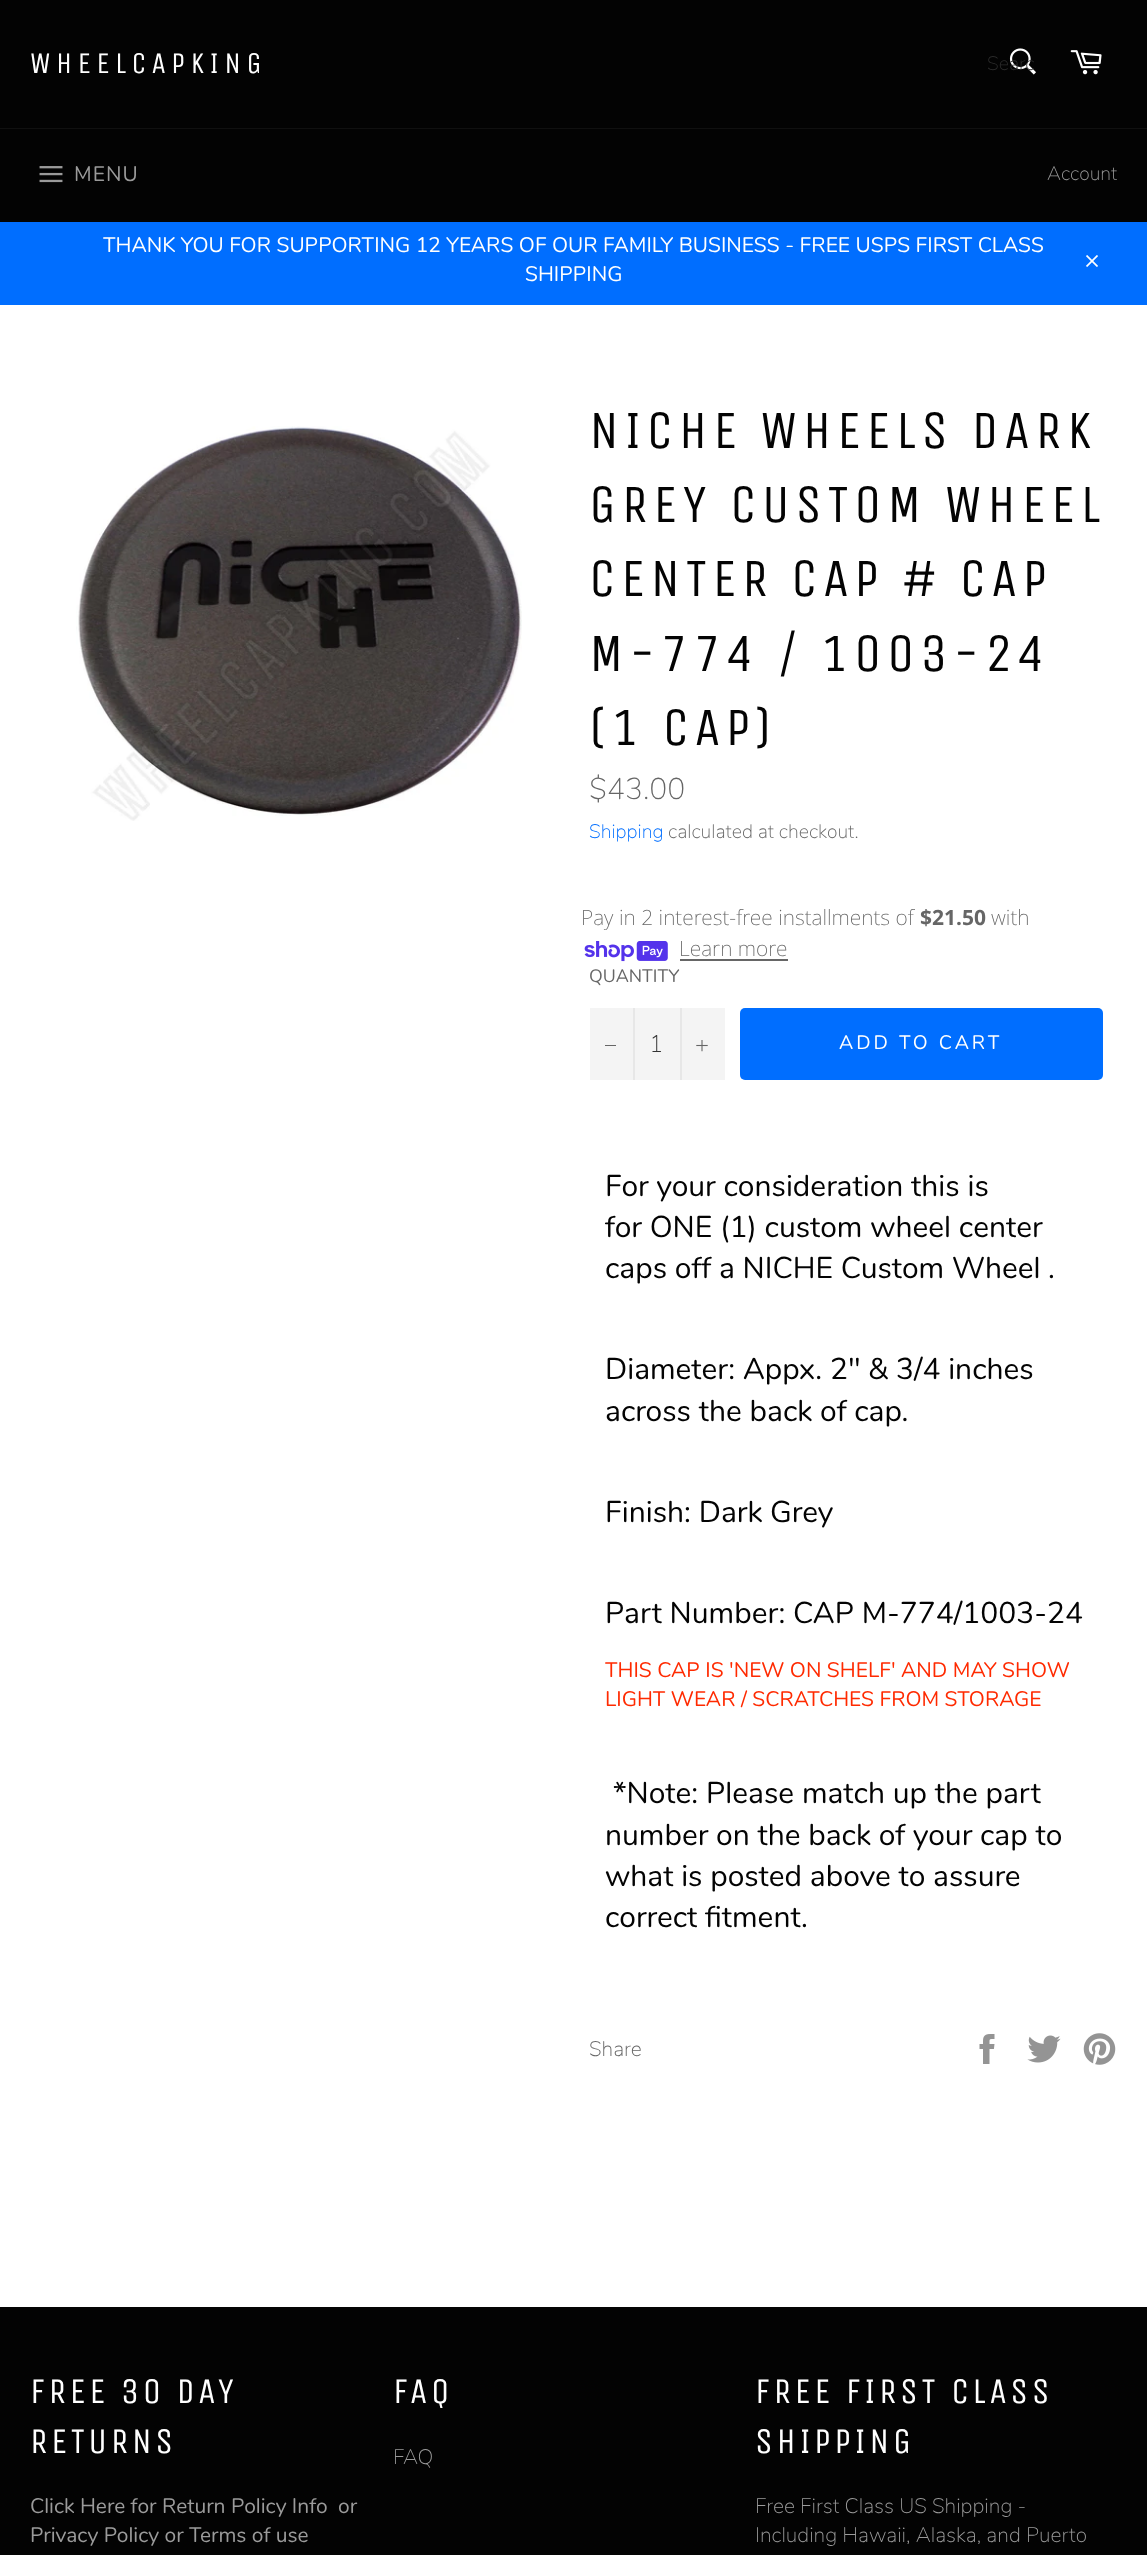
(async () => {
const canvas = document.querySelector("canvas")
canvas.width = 1147
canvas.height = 2555
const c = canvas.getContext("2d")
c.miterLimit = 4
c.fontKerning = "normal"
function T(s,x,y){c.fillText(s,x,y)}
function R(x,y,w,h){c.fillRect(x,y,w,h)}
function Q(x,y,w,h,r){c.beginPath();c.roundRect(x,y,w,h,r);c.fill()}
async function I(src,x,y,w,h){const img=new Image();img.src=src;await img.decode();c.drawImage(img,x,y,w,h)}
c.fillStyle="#fff"
R(0,0,1147,2555)
c.fillStyle="#030303"
R(0,0,1147,128)
c.letterSpacing="5.4px"
c.font="30px Unica One"
c.fillStyle="#fff"
T("WHEELCAPKING",30,73)
await I("1.png",1009,48,27,27)
c.letterSpacing="0px"
c.font="300 19.5px Nunito"
c.fillStyle="#2c2c2c"
T("Searc",987,70)
await I("2.png",1070,50,32,25)
c.fillStyle="#101010"
R(0,128,1147,1)
c.fillStyle="#030303"
R(0,129,1147,93)
await I("3.png",39,166,24,17)
c.letterSpacing="1px"
c.font="21px Nunito"
c.fillStyle="#9a9a9a"
T("MENU",74,181)
c.letterSpacing="0px"
c.font="300 19.5px Nunito"
T("Account",1047,180)
c.fillStyle="#006eff"
R(0,222,1147,83)
c.font="21px Nunito"
c.fillStyle="#fff"
T("THANK YOU FOR SUPPORTING 12 YEARS OF OUR FAMILY BUSINESS - FREE USPS FIRST CLASS",103,252)
T("SHIPPING",525,281)
await I("4.png",1086,255,12,12)
await I("5.png",76,426,446,395)
c.letterSpacing="5.4px"
c.font="54px Unica One"
c.fillStyle="#030303"
T("NICHE WHEELS DARK",589,448)
T("GREY CUSTOM WHEEL",589,522)
T("CENTER CAP # CAP",589,596)
T("M-774 / 1003-24",589,671)
T("(1 CAP)",589,745)
c.letterSpacing="0px"
c.font="300 30px Nunito"
c.fillStyle="#666"
T("$43.00",589,799)
c.font="300 19.5px Nunito"
c.fillStyle="#006eff"
T("Shipping",589,838)
c.fillStyle="#666"
T("calculated at checkout.",668,838)
c.font="200 21px Noto Sans"
T("Pay in 2 interest-free installments of",581,925)
c.font="bold 21px Noto Sans"
T("$21.50",920,925)
c.font="200 21px Noto Sans"
T("with",991,925)
await I("6.png",584,941,84,21)
T("Learn more",679,956)
R(680,959,108,2)
c.font="18px Nunito"
T("QUANTITY",589,982)
c.fillStyle="#f4f4f4"
R(590,1008,135,72)
c.fillStyle="#e7e7e7"
R(633,1008,2,72)
c.fillStyle="#666"
R(605,1045,11,1)
c.font="300 24px Nunito"
c.fillStyle="#333"
T("1",649,1052)
c.fillStyle="#e7e7e7"
R(680,1008,2,72)
await I("7.png",696,1040,12,12)
c.fillStyle="#006eff"
Q(740,1008,363,72,5)
c.letterSpacing="3px"
c.font="19.5px Nunito"
c.fillStyle="#fff"
T("ADD TO CART",839,1049)
c.letterSpacing="0px"
c.font="30px Nunito"
c.fillStyle="#030303"
T("For your consideration this is",605,1196)
T("for ONE (1) custom wheel center",605,1237)
T("caps off a NICHE Custom Wheel",605,1278)
T(".",1048,1278)
T("Diameter: Appx. 2\" & 3/4 inches",605,1379)
T("across the back of cap.",605,1421)
T("Finish: Dark Grey",605,1522)
T("Part Number: CAP M-774/1003-24",605,1623)
c.font="21px Nunito"
c.fillStyle="#ff2a00"
T("THIS CAP IS 'NEW ON SHELF' AND MAY SHOW",605,1677)
T("LIGHT WEAR / SCRATCHES FROM STORAGE",605,1706)
c.font="30px Nunito"
c.fillStyle="#030303"
T("*Note: Please match up the part",613,1803)
T("number on the back of your cap to",605,1845)
T("what is posted above to assure",605,1886)
T("correct fitment.",605,1927)
c.font="300 21px Nunito"
c.fillStyle="#666"
T("Share",589,2056)
await I("8.png",979,2034,16,30)
await I("9.png",1027,2035,34,28)
await I("10.png",1083,2033,33,32)
c.fillStyle="#030303"
R(0,2307,1147,248)
c.letterSpacing="3.6px"
c.font="36px Unica One"
c.fillStyle="#fff"
T("FREE 30 DAY",30,2403)
T("RETURNS",30,2453)
c.letterSpacing="0px"
c.font="21px Nunito"
c.fillStyle="#9a9a9a"
T("Click Here for Return Policy Info",30,2513)
T("or",338,2513)
T("Privacy Policy or Terms of use",30,2542)
c.letterSpacing="3.6px"
c.font="36px Unica One"
c.fillStyle="#fff"
T("FAQ",393,2403)
c.letterSpacing="0px"
c.font="300 21px Nunito"
c.fillStyle="#9a9a9a"
T("FAQ",393,2464)
c.letterSpacing="3.6px"
c.font="36px Unica One"
c.fillStyle="#fff"
T("FREE FIRST CLASS",755,2403)
T("SHIPPING",755,2453)
c.letterSpacing="0px"
c.font="300 21px Nunito"
c.fillStyle="#9a9a9a"
T("Free First Class US Shipping -",755,2513)
T("Including Hawaii, Alaska, and Puerto",755,2542)
})()
